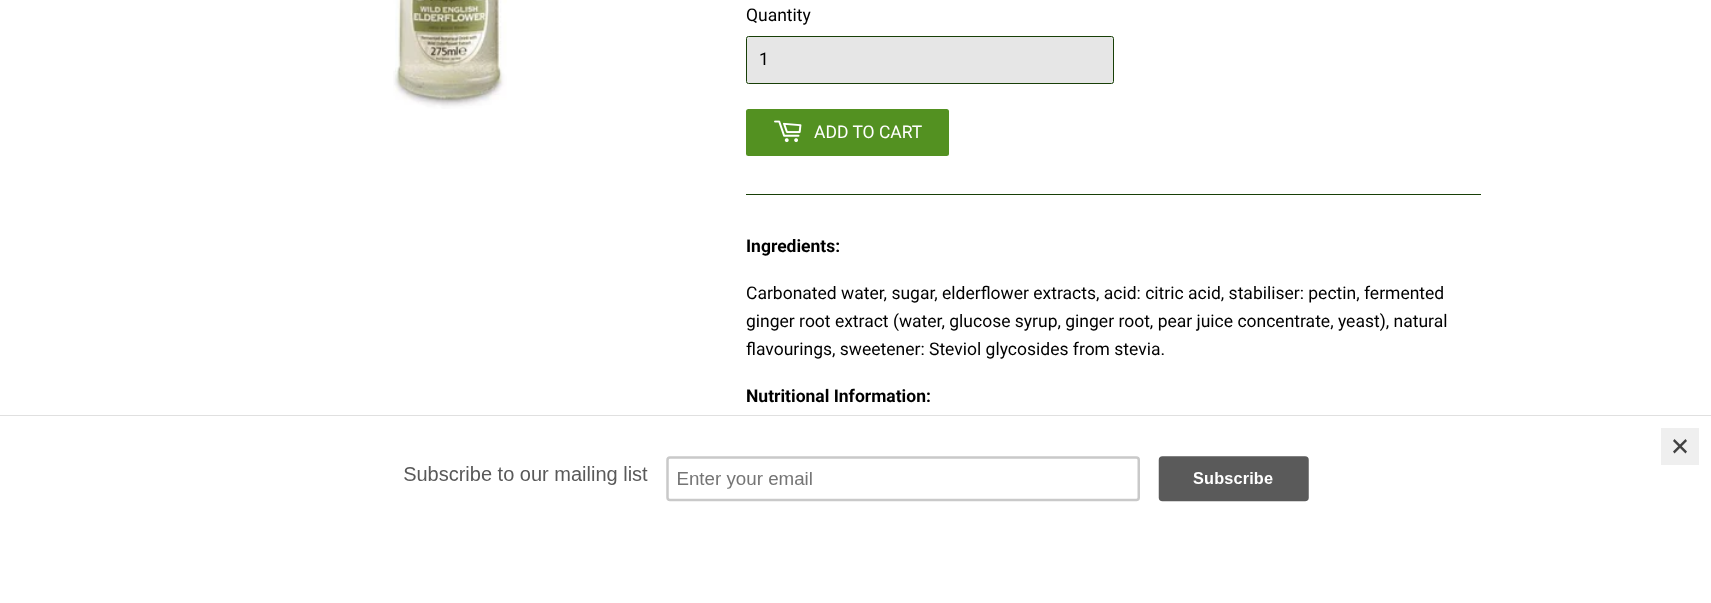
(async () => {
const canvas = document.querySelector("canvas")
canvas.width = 1711
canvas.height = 603
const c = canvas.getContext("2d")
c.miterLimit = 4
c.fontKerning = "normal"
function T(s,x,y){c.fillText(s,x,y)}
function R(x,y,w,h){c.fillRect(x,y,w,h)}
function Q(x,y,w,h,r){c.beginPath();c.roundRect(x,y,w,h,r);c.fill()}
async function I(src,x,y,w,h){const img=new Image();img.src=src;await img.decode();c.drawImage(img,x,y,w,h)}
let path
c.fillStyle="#fff"
R(0,0,1711,603)
await I("1.png",393,0,114,109)
c.font="17.5px Roboto"
c.fillStyle="#000"
T("Quantity",746,21)
c.fillStyle="#e6e6e6"
c.beginPath()
c.roundRect(746.5,36.5,367,47,2)
c.fill()
c.strokeStyle="#183f07"
c.stroke()
c.fillStyle="#000"
T("1",759,65)
c.fillStyle="#539121"
Q(746,109,203,47,2.5)
await I("2.png",774,120,28,23)
c.fillStyle="#fff"
T("ADD TO CART",814,138)
c.fillStyle="#183f07"
R(746,194,735,1)
c.font="bold 17.5px Roboto"
c.fillStyle="#000"
T("Ingredients:",746,252)
c.font="17.5px Roboto"
T("Carbonated water, sugar, elderflower extracts, acid: citric acid, stabiliser: pectin, fermented",746,299)
T("ginger root extract (water, glucose syrup, ginger root, pear juice concentrate, yeast), natural",746,327)
T("flavourings, sweetener: Steviol glycosides from stevia.",746,355)
c.font="bold 17.5px Roboto"
T("Nutritional Information:",746,402)
c.fillStyle="#e0e0e0"
R(0,415,1711,1)
await I("3.png",404,456,905,46)
c.fillStyle="#efefef"
R(1661,428,38,37)
c.fillStyle="#414141"
path = new Path2D("M1685.5 439l1.5 2l-12.5 12.5l-1.5-2z")
c.fill(path)
path = new Path2D("M1673 441l1.5-2l12.5 12.5l-1.5 2z")
c.fill(path)
})()
